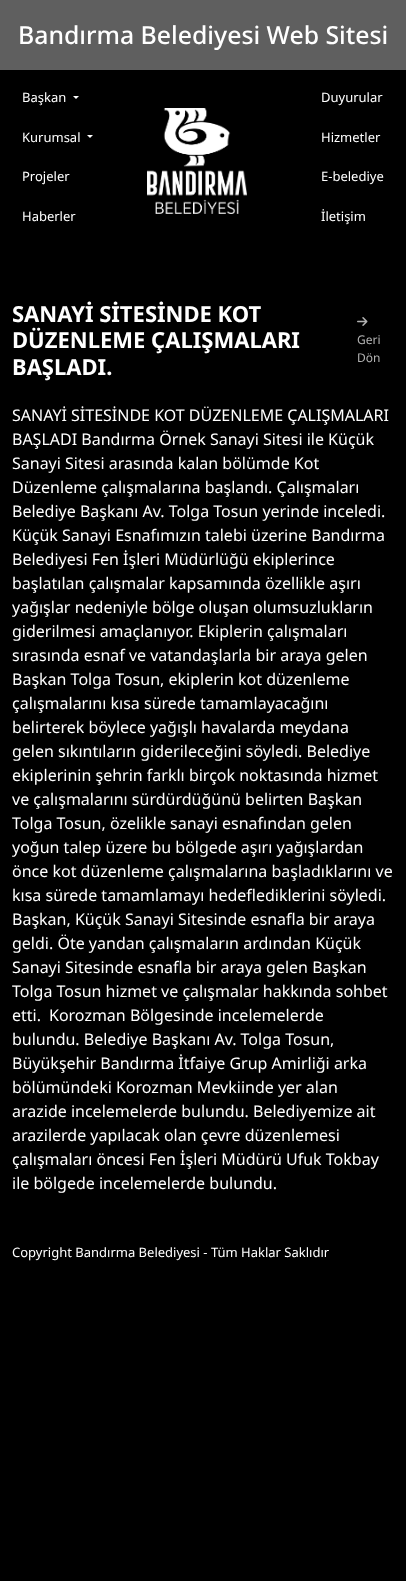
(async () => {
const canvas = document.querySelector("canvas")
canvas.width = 406
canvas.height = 1581
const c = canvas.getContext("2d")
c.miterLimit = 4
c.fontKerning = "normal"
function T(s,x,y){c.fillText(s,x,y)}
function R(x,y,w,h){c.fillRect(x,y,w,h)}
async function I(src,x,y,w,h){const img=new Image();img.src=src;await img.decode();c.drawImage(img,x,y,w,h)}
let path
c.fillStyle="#000"
R(0,0,406,1581)
c.fillStyle="#5f5f5f"
R(0,0,406,70)
c.font="500 24.8px Noto Sans"
c.fillStyle="#fff"
T("Bandırma Belediyesi Web Sitesi",18,44)
c.font="13px Noto Sans"
T("Başkan",22,102)
path = new Path2D("M73 96h6l-3 3z")
c.fill(path)
T("Kurumsal",22,142)
path = new Path2D("M87 135h6l-3 3z")
c.fill(path)
T("Projeler",22,181)
T("Haberler",22,221)
await I("1.png",147,108,100,106)
T("Duyurular",321,102)
T("Hizmetler",321,142)
T("E-belediye",321,181)
T("İletişim",321,221)
c.font="bold 22px Noto Sans"
T("SANAYİ SİTESİNDE KOT",12,322)
T("DÜZENLEME ÇALIŞMALARI",12,348)
T("BAŞLADI.",12,375)
await I("2.png",357,317,11,9)
c.font="12px Noto Sans"
c.fillStyle="#b3b3b3"
T("Geri",357,344)
T("Dön",357,362)
c.font="16px Noto Sans"
c.fillStyle="#fff"
T("SANAYİ SİTESİNDE KOT DÜZENLEME ÇALIŞMALARI",12,421)
T("BAŞLADI Bandırma Örnek Sanayi Sitesi ile Küçük",12,445)
T("Sanayi Sitesi arasında kalan bölümde Kot",12,469)
T("Düzenleme çalışmalarına başlandı. Çalışmaları",12,493)
T("Belediye Başkanı Av. Tolga Tosun yerinde inceledi.",12,517)
T("Küçük Sanayi Esnafımızın talebi üzerine Bandırma",12,541)
T("Belediyesi Fen İşleri Müdürlüğü ekiplerince",12,565)
T("başlatılan çalışmalar kapsamında özellikle aşırı",12,589)
T("yağışlar nedeniyle bölge oluşan olumsuzlukların",12,613)
T("giderilmesi amaçlanıyor. Ekiplerin çalışmaları",12,637)
T("sırasında esnaf ve vatandaşlarla bir araya gelen",12,661)
T("Başkan Tolga Tosun, ekiplerin kot düzenleme",12,685)
T("çalışmalarını kısa sürede tamamlayacağını",12,709)
T("belirterek böylece yağışlı havalarda meydana",12,733)
T("gelen sıkıntıların giderileceğini söyledi. Belediye",12,757)
T("ekiplerinin şehrin farklı birçok noktasında hizmet",12,781)
T("ve çalışmalarını sürdürdüğünü belirten Başkan",12,805)
T("Tolga Tosun, özelikle sanayi esnafından gelen",12,829)
T("yoğun talep üzere bu bölgede aşırı yağışlardan",12,853)
T("önce kot düzenleme çalışmalarına başladıklarını ve",12,877)
T("kısa sürede tamamlamayı hedeflediklerini söyledi.",12,901)
T("Başkan, Küçük Sanayi Sitesinde esnafla bir araya",12,925)
T("geldi. Öte yandan çalışmaların ardından Küçük",12,949)
T("Sanayi Sitesinde esnafla bir araya gelen Başkan",12,973)
T("Tolga Tosun hizmet ve çalışmalar hakkında sohbet",12,997)
T("etti.",12,1021)
T("Korozman Bölgesinde incelemelerde",49,1021)
T("bulundu. Belediye Başkanı Av. Tolga Tosun,",12,1045)
T("Büyükşehir Bandırma İtfaiye Grup Amirliği arka",12,1069)
T("bölümündeki Korozman Mevkiinde yer alan",12,1093)
T("arazide incelemelerde bulundu. Belediyemize ait",12,1117)
T("arazilerde yapılacak olan çevre düzenlemesi",12,1141)
T("çalışmaları öncesi Fen İşleri Müdürü Ufuk Tokbay",12,1165)
T("ile bölgede incelemelerde bulundu.",12,1189)
c.font="13px Noto Sans"
T("Copyright Bandırma Belediyesi - Tüm Haklar Saklıdır",12,1257)
})()
